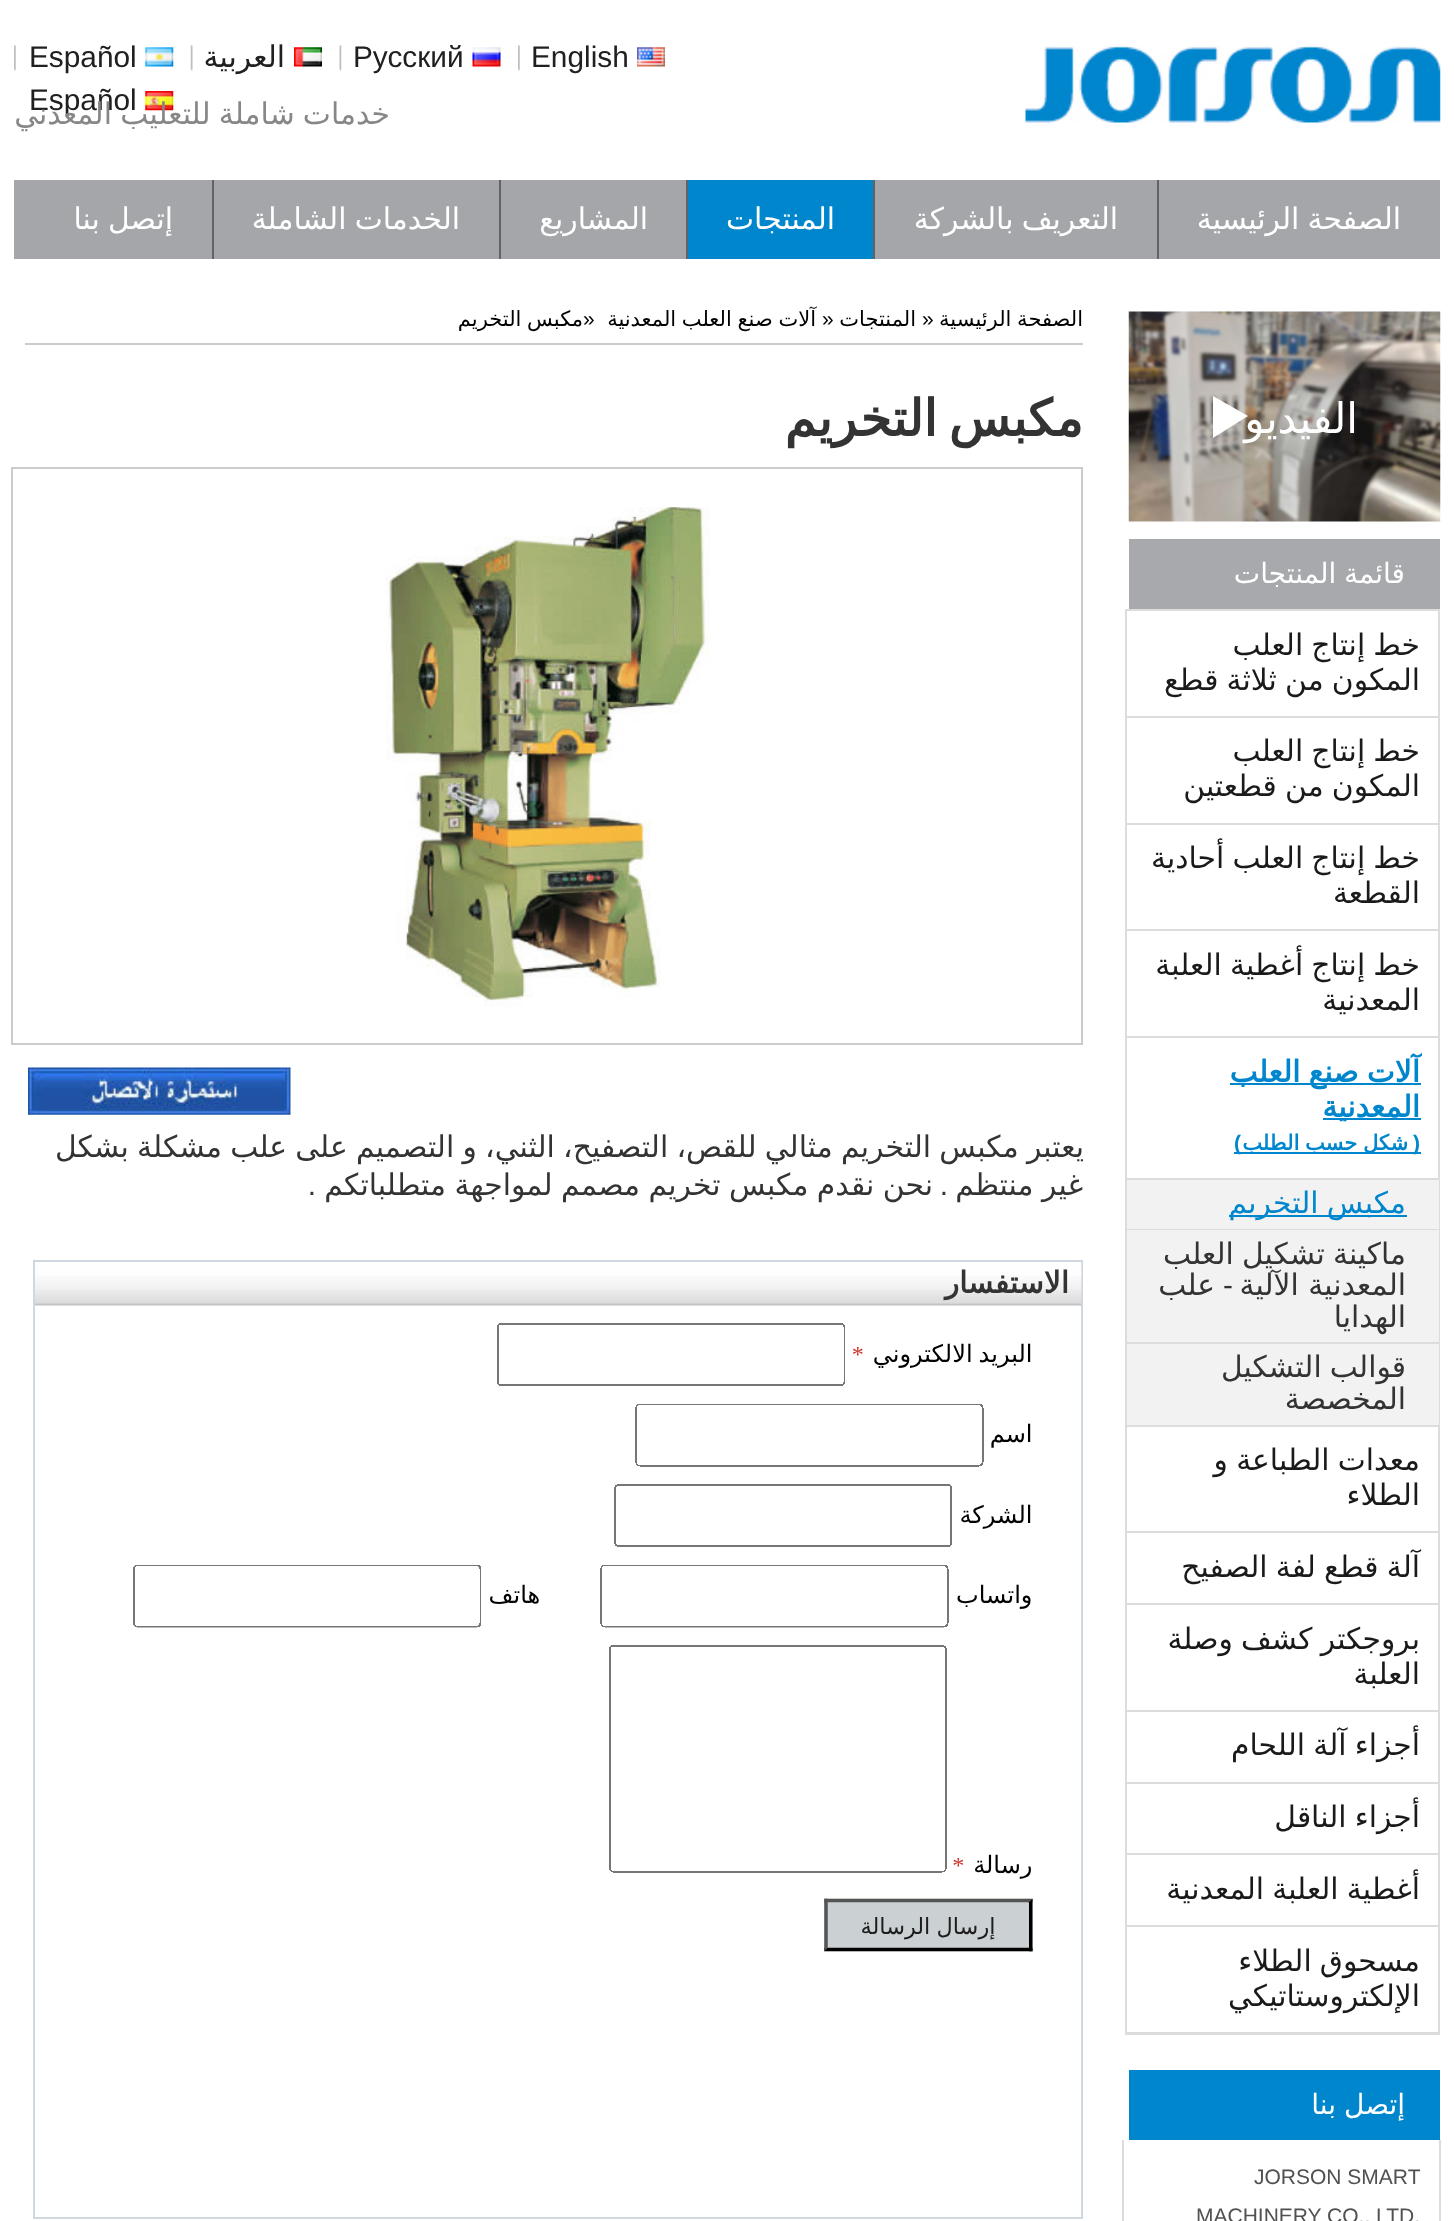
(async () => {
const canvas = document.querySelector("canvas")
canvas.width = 1454
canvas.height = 2221
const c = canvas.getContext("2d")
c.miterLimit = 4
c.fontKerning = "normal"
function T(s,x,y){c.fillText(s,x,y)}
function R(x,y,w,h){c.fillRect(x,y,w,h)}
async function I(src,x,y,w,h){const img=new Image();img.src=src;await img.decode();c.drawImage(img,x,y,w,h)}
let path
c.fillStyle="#fff"
R(0,0,1454,2221)
await I("1.png",1025,46,416,77)
await I("2.png",518,45,2,26)
await I("3.png",637,47,28,20)
c.font="29.8px Liberation Sans"
c.fillStyle="#202020"
T("English",531,67)
await I("4.png",339,45,3,26)
await I("5.png",472,47,29,20)
T("Русский",353,67)
await I("6.png",190,45,3,26)
await I("7.png",294,47,28,20)
c.direction="rtl"
c.font="29.8px DejaVu Sans"
T("العربية",285,67)
await I("2.png",14,45,2,26)
await I("8.png",145,47,29,20)
c.direction="ltr"
c.font="29.8px Liberation Sans"
T("Español",29,67)
await I("9.png",145,91,29,20)
T("Español",29,110)
c.wordSpacing="-1.25px"
c.direction="rtl"
c.font="29.8px DejaVu Sans"
c.fillStyle="#878787"
T("خدمات شاملة للتعليب المعدني",390,124)
c.fillStyle="#a4a6a9"
R(14,180,1426,79)
c.fillStyle="#fff"
T("الصفحة الرئيسية",1401,229)
c.fillStyle="#636363"
R(1157,180,2,79)
c.fillStyle="#fff"
T("التعريف بالشركة",1118,229)
c.fillStyle="#636363"
R(873,180,2,79)
c.fillStyle="#0086cd"
R(688,180,185,79)
c.wordSpacing="0px"
c.fillStyle="#fff"
T("المنتجات",835,229)
c.fillStyle="#636363"
R(686,180,2,79)
c.fillStyle="#fff"
T("المشاريع",648,229)
c.fillStyle="#636363"
R(499,180,2,79)
c.wordSpacing="-1.25px"
c.fillStyle="#fff"
T("الخدمات الشاملة",460,229)
c.fillStyle="#636363"
R(212,180,2,79)
c.fillStyle="#fff"
T("إتصل بنا",173,229)
await I("10.png",1128,311,313,211)
path = new Path2D("M1213 438v-42l35 20z")
c.fill(path)
c.wordSpacing="0px"
c.font="42px DejaVu Sans"
T("الفيديو",1358,433)
c.fillStyle="#a7a9ac"
R(1129,539,311,70)
c.wordSpacing="-1px"
c.font="28px DejaVu Sans"
c.fillStyle="#fff"
T("قائمة المنتجات",1405,583)
c.strokeStyle="#dcdcdc"
c.lineWidth=2
c.strokeRect(1126,610,313,1424)
c.fillStyle="#dcdcdc"
R(1127,716,312,2)
c.wordSpacing="-1.25px"
c.font="29.75px DejaVu Sans"
c.fillStyle="#1a1a1a"
T("خط إنتاج العلب",1420,655)
T("المكون من ثلاثة قطع",1420,690)
c.fillStyle="#dcdcdc"
R(1127,823,312,2)
c.fillStyle="#1a1a1a"
T("خط إنتاج العلب",1420,761)
T("المكون من قطعتين",1420,796)
c.fillStyle="#dcdcdc"
R(1127,929,312,2)
c.fillStyle="#1a1a1a"
T("خط إنتاج العلب أحادية",1420,868)
c.wordSpacing="0px"
T("القطعة",1420,903)
c.fillStyle="#dcdcdc"
R(1127,1036,312,2)
c.wordSpacing="-1.25px"
c.fillStyle="#1a1a1a"
T("خط إنتاج أغطية العلبة",1420,975)
c.wordSpacing="0px"
T("المعدنية",1420,1010)
c.fillStyle="#dcdcdc"
R(1127,1178,312,2)
c.fillStyle="#0086cd"
R(1230,1083,191,2)
c.wordSpacing="-1.25px"
c.font="bold 29.75px DejaVu Sans"
T("آلات صنع العلب",1420,1082)
R(1323,1118,98,2)
c.wordSpacing="0px"
T("المعدنية",1420,1117)
R(1234,1152,187,2)
c.font="bold 21px Liberation Sans"
T("(",1420,1150)
c.wordSpacing="-1px"
c.font="bold 21px DejaVu Sans"
T("شكل حسب الطلب",1408,1150)
c.wordSpacing="0px"
c.font="bold 21px Liberation Sans"
T(")",1241,1150)
c.fillStyle="#f2f2f2"
R(1127,1180,312,49)
c.fillStyle="#dcdcdc"
R(1127,1229,312,1)
c.fillStyle="#0086cd"
R(1229,1215,178,2)
c.wordSpacing="-1.25px"
c.font="29.75px DejaVu Sans"
T("مكبس التخريم",1406,1213)
c.fillStyle="#f2f2f2"
R(1127,1230,312,112)
c.fillStyle="#dcdcdc"
R(1127,1342,312,2)
c.fillStyle="#333"
T("ماكينة تشكيل العلب",1406,1264)
c.wordSpacing="0px"
T("المعدنية الآلية",1406,1295)
c.font="29.75px Liberation Sans"
T("-",1233,1295)
c.font="29.75px DejaVu Sans"
T("علب",1215,1295)
T("الهدايا",1406,1327)
c.fillStyle="#f2f2f2"
R(1127,1344,312,81)
c.fillStyle="#dcdcdc"
R(1127,1425,312,2)
c.wordSpacing="-1.25px"
c.fillStyle="#333"
T("قوالب التشكيل",1406,1377)
c.wordSpacing="0px"
T("المخصصة",1406,1409)
c.fillStyle="#dcdcdc"
R(1127,1531,312,2)
c.wordSpacing="-1.25px"
c.fillStyle="#1a1a1a"
T("معدات الطباعة و",1420,1470)
c.wordSpacing="0px"
T("الطلاء",1420,1505)
c.fillStyle="#dcdcdc"
R(1127,1603,312,2)
c.wordSpacing="-1.25px"
c.fillStyle="#1a1a1a"
T("آلة قطع لفة الصفيح",1420,1577)
c.fillStyle="#dcdcdc"
R(1127,1710,312,2)
c.fillStyle="#1a1a1a"
T("بروجكتر كشف وصلة",1420,1649)
c.wordSpacing="0px"
T("العلبة",1420,1684)
c.fillStyle="#dcdcdc"
R(1127,1782,312,2)
c.wordSpacing="-1.25px"
c.fillStyle="#1a1a1a"
T("أجزاء آلة اللحام",1420,1755)
c.fillStyle="#dcdcdc"
R(1127,1853,312,2)
c.fillStyle="#1a1a1a"
T("أجزاء الناقل",1420,1827)
c.fillStyle="#dcdcdc"
R(1127,1925,312,2)
c.fillStyle="#1a1a1a"
T("أغطية العلبة المعدنية",1420,1899)
c.fillStyle="#dcdcdc"
R(1127,2032,312,1)
c.fillStyle="#1a1a1a"
T("مسحوق الطلاء",1420,1971)
c.wordSpacing="0px"
T("الإلكتروستاتيكي",1420,2006)
c.fillStyle="#0086cd"
R(1129,2070,311,70)
c.wordSpacing="-1px"
c.font="28px DejaVu Sans"
c.fillStyle="#fff"
T("إتصل بنا",1405,2114)
c.fillStyle="#dcdcdc"
R(1439,2140,2,81)
R(1122,2140,2,81)
c.wordSpacing="0px"
c.direction="ltr"
c.font="21px Liberation Sans"
c.fillStyle="#515151"
T("JORSON SMART",1254,2184)
T("MACHINERY CO., LTD.",1196,2223)
c.fillStyle="#ccc"
R(25,343,1058,2)
c.wordSpacing="-1px"
c.direction="rtl"
c.font="21px DejaVu Sans"
c.fillStyle="#000"
T("الصفحة الرئيسية",1083,326)
c.wordSpacing="0px"
c.direction="ltr"
c.font="21px Liberation Sans"
T("»",922,326)
c.direction="rtl"
c.font="21px DejaVu Sans"
T("المنتجات",916,326)
c.direction="ltr"
c.font="21px Liberation Sans"
T("»",822,326)
c.wordSpacing="-1px"
c.direction="rtl"
c.font="21px DejaVu Sans"
T("آلات صنع العلب المعدنية",816,326)
c.wordSpacing="0px"
c.direction="ltr"
c.font="21px Liberation Sans"
T("»",583,326)
c.wordSpacing="-1px"
c.direction="rtl"
c.font="21px DejaVu Sans"
T("مكبس التخريم",583,326)
c.wordSpacing="-5px"
c.font="bold 50.5px DejaVu Sans"
c.fillStyle="#333"
T("مكبس التخريم",1083,436)
c.strokeStyle="#ccc"
c.strokeRect(12,468,1070,576)
await I("11.png",386,507,324,500)
await I("12.png",28,1067,263,48)
c.wordSpacing="-1.25px"
c.font="29.8px DejaVu Sans"
T("يعتبر مكبس التخريم مثالي للقص، التصفيح، الثني، و التصميم على علب مشكلة بشكل",1084,1157)
c.wordSpacing="-1px"
T("غير منتظم",1083,1195)
c.wordSpacing="0px"
c.font="29.8px Liberation Sans"
T(".",948,1195)
c.wordSpacing="-1px"
c.font="29.8px DejaVu Sans"
T("نحن نقدم مكبس تخريم مصمم لمواجهة متطلباتكم",933,1195)
c.wordSpacing="0px"
c.font="29.8px Liberation Sans"
T(".",316,1195)
c.strokeStyle="#cfd8e1"
c.strokeRect(34,1261,1048,957)
await I("13.png",35,1262,1047,44)
c.font="bold 29.8px DejaVu Sans"
T("الاستفسار",1069,1293)
await I("14.png",133,1323,900,629)
})()
